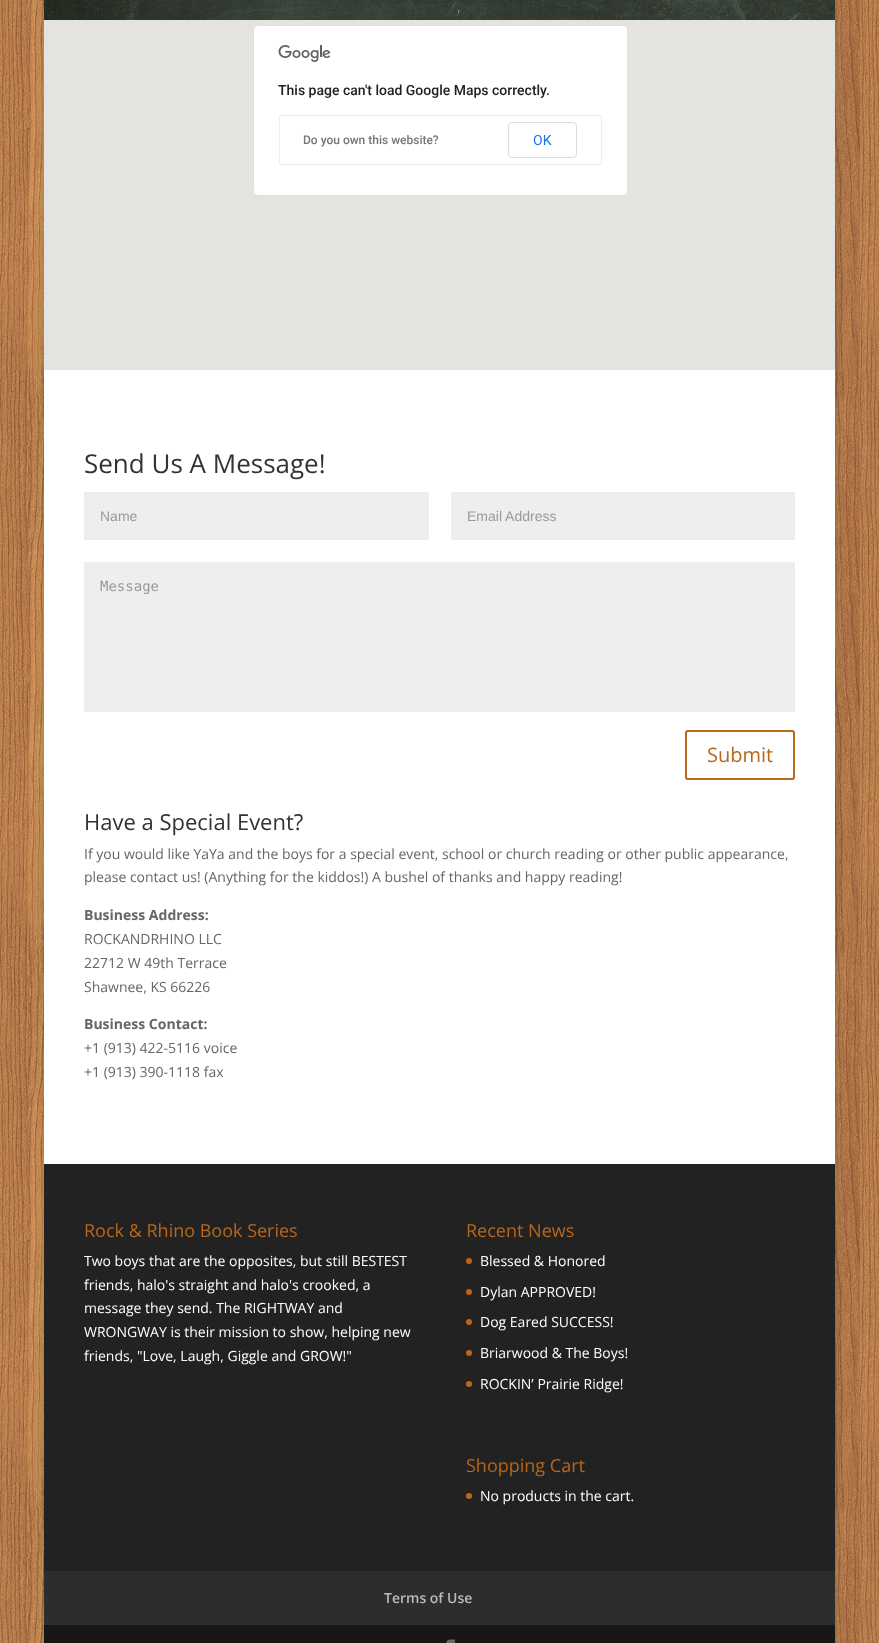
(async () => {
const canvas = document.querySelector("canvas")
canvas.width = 879
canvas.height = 1643
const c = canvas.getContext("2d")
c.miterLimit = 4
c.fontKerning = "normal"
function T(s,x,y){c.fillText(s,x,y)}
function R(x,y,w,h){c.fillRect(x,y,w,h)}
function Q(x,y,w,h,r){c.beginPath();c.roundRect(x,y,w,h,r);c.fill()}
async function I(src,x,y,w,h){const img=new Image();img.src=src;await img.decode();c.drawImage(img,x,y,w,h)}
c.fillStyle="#fff"
R(0,0,879,1643)
await I("1.png",0,0,879,1643)
c.fillStyle="#00000033"
c.filter="blur(5px)"
c.beginPath()
c.rect(44,-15,791,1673)
c.fill()
c.filter="none"
await I("2.png",44,0,791,20)
c.fillStyle="#e5e3df"
R(44,20,791,350)
c.fillStyle="#fff"
Q(253,25,375,171,5)
c.beginPath()
c.roundRect(253.5,25.5,374,170,4.5)
c.strokeStyle="#0000001f"
c.stroke()
await I("3.png",278,45,52,17)
c.font="500 14px Roboto"
c.fillStyle="#212121"
T("This page can't load Google Maps correctly.",278,95)
c.fillStyle="#eee"
R(279,115,323,1)
R(601,115,1,50)
R(279,164,323,1)
R(279,115,1,50)
c.font="500 12px Roboto"
c.fillStyle="#757575"
T("Do you own this website?",303,144)
c.beginPath()
c.roundRect(508.5,122.5,68,35,3.5)
c.strokeStyle="#dadce0"
c.stroke()
c.font="14px Roboto"
c.fillStyle="#1a73e8"
T("OK",533,145)
c.fillStyle="#fff"
R(44,370,791,794)
c.font="26px Open Sans"
c.fillStyle="#333"
T("Send Us A Message!",84,473)
c.fillStyle="#eee"
R(84,492,345,48)
c.font="14px Liberation Sans"
c.fillStyle="#999"
T("Name",100,521)
c.fillStyle="#eee"
R(451,492,344,48)
c.fillStyle="#999"
T("Email Address",467,521)
c.fillStyle="#eee"
R(84,562,711,150)
c.font="14px DejaVu Sans Mono"
c.fillStyle="#999"
T("Message",100,591)
c.beginPath()
c.roundRect(686,731,108,48,2)
c.strokeStyle="#b8671b"
c.lineWidth=2
c.stroke()
c.font="20px Open Sans"
c.fillStyle="#b8671b"
T("Submit",707,762)
c.font="22px Open Sans"
c.fillStyle="#333"
T("Have a Special Event?",84,830)
c.font="14px Open Sans"
c.fillStyle="#666"
T("If you would like YaYa and the boys for a special event, school or church reading or other public appearance,",84,859)
T("please contact us! (Anything for the kiddos!) A bushel of thanks and happy reading!",84,882)
c.font="bold 14px Open Sans"
T("Business Address:",84,920)
c.font="14px Open Sans"
T("ROCKANDRHINO LLC",84,944)
T("22712 W 49th Terrace",84,968)
T("Shawnee, KS 66226",84,992)
c.font="bold 14px Open Sans"
T("Business Contact:",84,1029)
c.font="14px Open Sans"
T("+1 (913) 422-5116 voice",84,1053)
T("+1 (913) 390-1118 fax",84,1077)
c.fillStyle="#222"
R(44,1164,791,407)
c.font="18px Open Sans"
c.fillStyle="#b8671b"
T("Rock & Rhino Book Series",84,1237)
c.font="14px Open Sans"
c.fillStyle="#fff"
T("Two boys that are the opposites, but still BESTEST",84,1266)
T("friends, halo's straight and halo's crooked, a",84,1290)
T("message they send. The RIGHTWAY and",84,1313)
T("WRONGWAY is their mission to show, helping new",84,1337)
T("friends, \"Love, Laugh, Giggle and GROW!\"",84,1361)
c.font="18px Open Sans"
c.fillStyle="#b8671b"
T("Recent News",466,1237)
c.beginPath()
c.arc(469,1261,3,0,7)
c.fill()
c.font="14px Open Sans"
c.fillStyle="#fff"
T("Blessed & Honored",480,1266)
c.fillStyle="#b8671b"
c.beginPath()
c.arc(469,1292,3,0,7)
c.fill()
c.fillStyle="#fff"
T("Dylan APPROVED!",480,1297)
c.fillStyle="#b8671b"
c.beginPath()
c.arc(469,1322,3,0,7)
c.fill()
c.fillStyle="#fff"
T("Dog Eared SUCCESS!",480,1327)
c.fillStyle="#b8671b"
c.beginPath()
c.arc(469,1353,3,0,7)
c.fill()
c.fillStyle="#fff"
T("Briarwood & The Boys!",480,1358)
c.fillStyle="#b8671b"
c.beginPath()
c.arc(469,1384,3,0,7)
c.fill()
c.fillStyle="#fff"
T("ROCKIN’ Prairie Ridge!",480,1389)
c.font="18px Open Sans"
c.fillStyle="#b8671b"
T("Shopping Cart",466,1472)
c.beginPath()
c.arc(469,1496,3,0,7)
c.fill()
c.font="14px Open Sans"
c.fillStyle="#fff"
T("No products in the cart.",480,1501)
c.fillStyle="#2d2d2d"
R(44,1571,791,54)
c.font="600 14px Open Sans"
c.fillStyle="#bbb"
T("Terms of Use",384,1603)
c.fillStyle="#171717"
R(44,1625,791,18)
await I("4.png",446,1639,9,4)
})()
